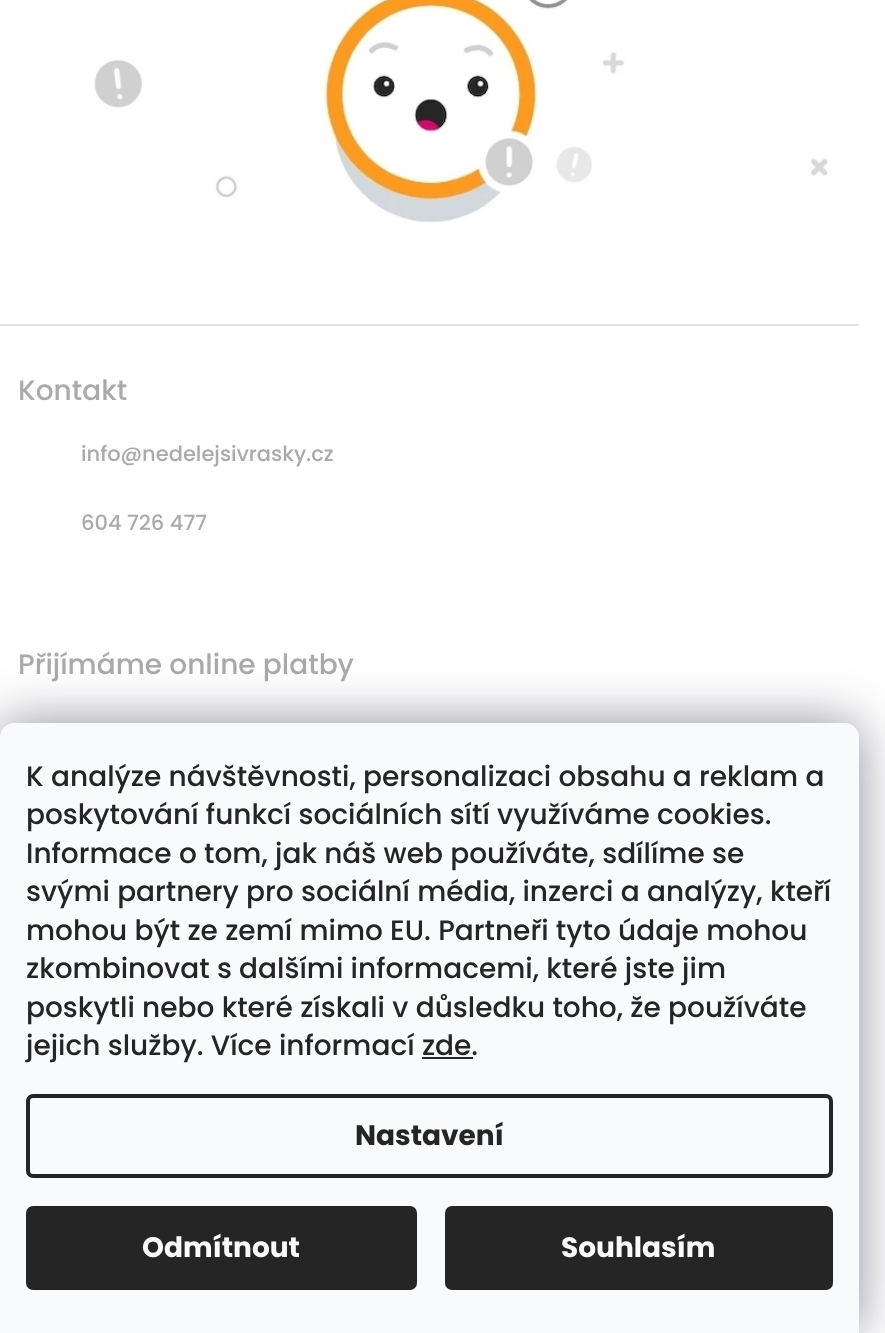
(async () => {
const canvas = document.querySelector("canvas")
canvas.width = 885
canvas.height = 1333
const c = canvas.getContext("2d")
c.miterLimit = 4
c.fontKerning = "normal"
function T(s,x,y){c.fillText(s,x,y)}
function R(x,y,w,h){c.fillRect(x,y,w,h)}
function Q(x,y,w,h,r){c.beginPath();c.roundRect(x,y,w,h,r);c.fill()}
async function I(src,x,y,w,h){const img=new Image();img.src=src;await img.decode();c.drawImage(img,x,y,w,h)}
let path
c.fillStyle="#fff"
R(0,0,885,1333)
await I("1.png",94,0,734,223)
c.fillStyle="#e3e3e3"
R(0,324,859,2)
c.font="500 28px Poppins"
c.fillStyle="#aaa"
T("Kontakt",18,400)
c.font="500 21px Poppins"
T("info@nedelejsivrasky.cz",81,461)
T("604 726 477",81,530)
c.font="500 28px Poppins"
T("Přijímáme online platby",18,674)
c.fillStyle="#1b193980"
c.filter="blur(26px)"
c.beginPath()
c.roundRect(0,723,859,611,14)
c.fill()
c.filter="none"
c.fillStyle="#f8fafb"
path = new Path2D("M14 723h831c7.5 0 14 6.5 14 14v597h-859v-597c0-7.5 6.5-14 14-14z")
c.fill(path)
c.fillStyle="#252525"
T("K analýze návštěvnosti, personalizaci obsahu a reklam a",26,786)
T("poskytování funkcí sociálních sítí využíváme cookies.",26,824)
T("Informace o tom, jak náš web používáte, sdílíme se",26,863)
T("svými partnery pro sociální média, inzerci a analýzy, kteří",26,901)
T("mohou být ze zemí mimo EU. Partneři tyto údaje mohou",26,940)
T("zkombinovat s dalšími informacemi, které jste jim",26,978)
T("poskytli nebo které získali v důsledku toho, že používáte",26,1017)
T("jejich služby. Více informací zde.",26,1055)
R(422,1057,51,2)
c.beginPath()
c.roundRect(28,1096,803,80,5)
c.strokeStyle="#252525"
c.lineWidth=4
c.stroke()
c.font="bold 28px Poppins"
T("Nastavení",355,1145)
Q(26,1206,391,84,7)
c.fillStyle="#f8fafb"
T("Odmítnout",142,1257)
c.fillStyle="#252525"
Q(445,1206,388,84,7)
c.fillStyle="#f8fafb"
T("Souhlasím",561,1257)
})()
